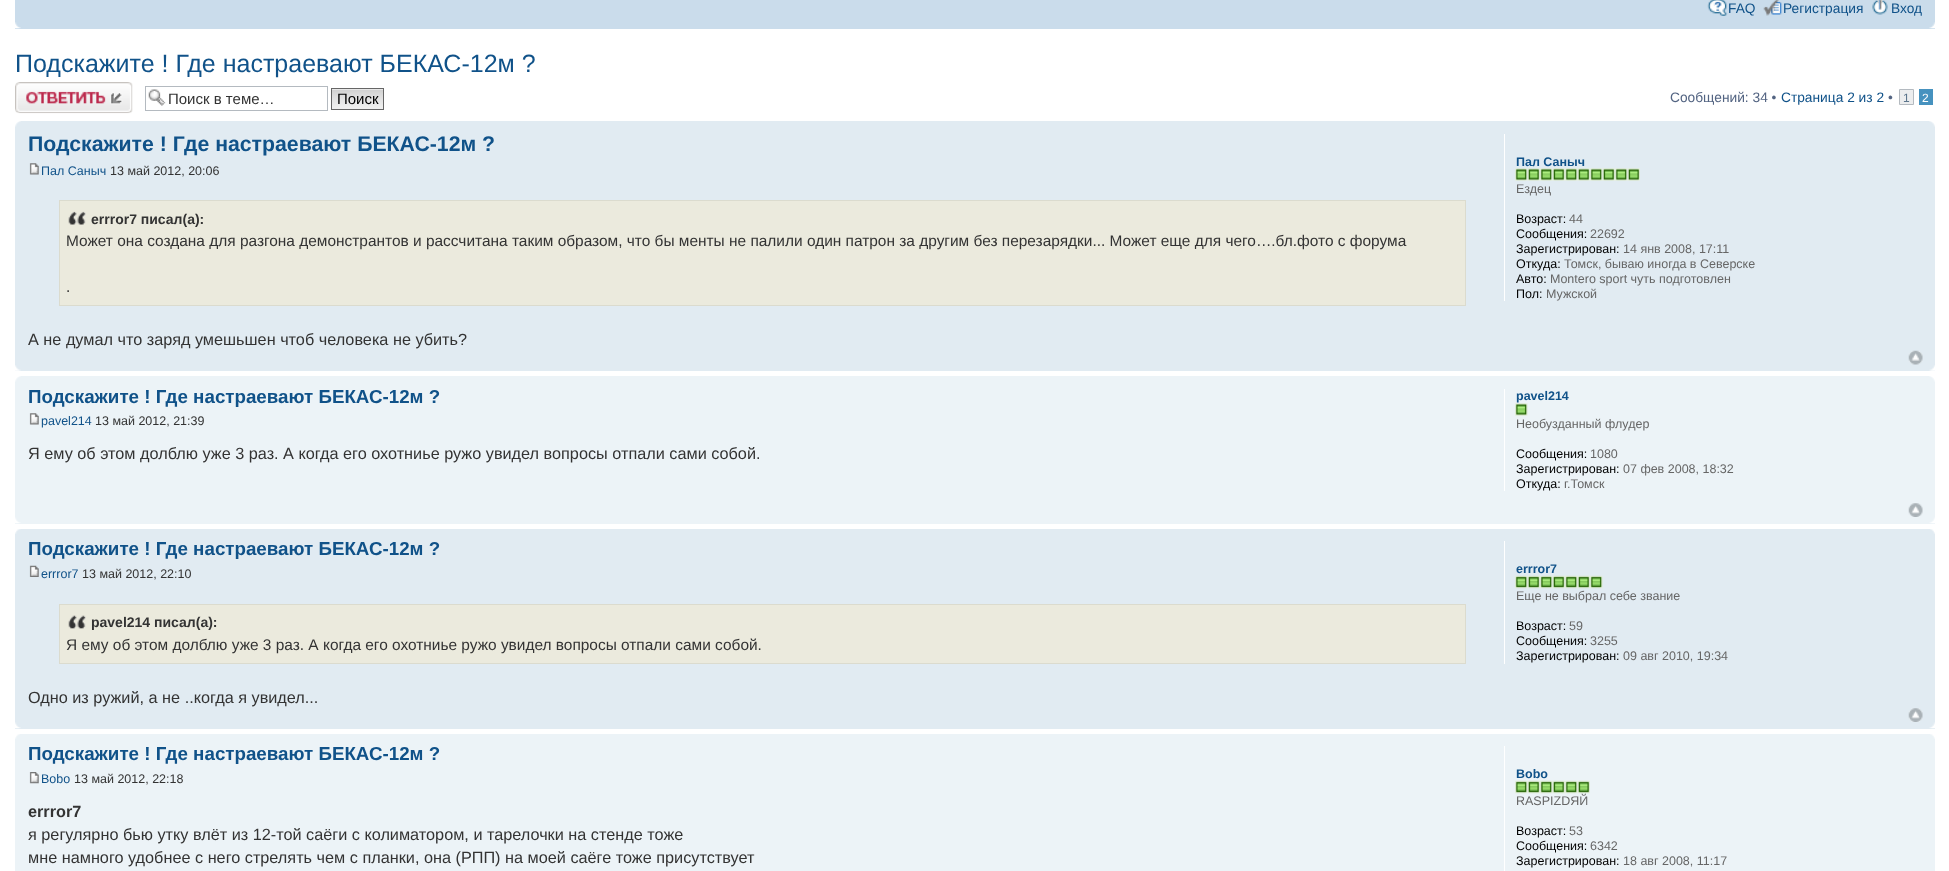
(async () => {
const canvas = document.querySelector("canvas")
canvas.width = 1949
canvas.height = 871
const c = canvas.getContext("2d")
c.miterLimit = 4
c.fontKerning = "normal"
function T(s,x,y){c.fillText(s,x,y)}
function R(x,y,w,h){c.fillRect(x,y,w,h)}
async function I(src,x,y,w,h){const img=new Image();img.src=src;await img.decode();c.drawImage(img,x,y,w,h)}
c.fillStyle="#fff"
R(0,0,1949,871)
c.fillStyle="#cadceb"
R(15,0,1920,29)
await I("1.png",1707,0,21,16)
c.font="13.75px Liberation Sans"
c.fillStyle="#105289"
T("FAQ",1728,13)
await I("2.png",1763,0,19,16)
T("Регистрация",1783,13)
await I("3.png",1872,0,16,15)
T("Вход",1891,13)
await I("4.png",15,22,6,7)
await I("5.png",1929,22,6,7)
c.font="25px Liberation Sans"
T("Подскажите ! Где настраевают БЕКАС-12м ?",15,72)
await I("6.png",15,82,118,32)
await I("7.png",148,89,18,17)
c.strokeStyle="#b4bac0"
c.strokeRect(145.5,86.5,182,24)
c.font="15px Liberation Sans"
c.fillStyle="#333"
T("Поиск в теме…",168,104)
await I("8.png",332,89,51,20)
c.strokeStyle="#666"
c.strokeRect(331.5,88.5,52,21)
c.fillStyle="#000"
T("Поиск",337,104)
c.font="13.75px Liberation Sans"
c.fillStyle="#536482"
T("Сообщений: 34 •",1670,102)
c.fillStyle="#105289"
T("Страница 2 из 2",1781,102)
c.fillStyle="#536482"
T("•",1888,102)
c.fillStyle="#ecedee"
c.beginPath()
c.rect(1899.5,89.5,14,15)
c.fill()
c.strokeStyle="#b4bac0"
c.stroke()
c.font="12px Liberation Sans"
c.fillStyle="#5c758c"
T("1",1903,102)
c.fillStyle="#4692bf"
R(1919,89,14,16)
c.fillStyle="#fff"
T("2",1922,102)
c.fillStyle="#e1ebf2"
R(15,121,1920,250)
await I("9.png",15,121,6,6)
await I("10.png",1929,121,6,6)
c.font="bold 21.25px Liberation Sans"
c.fillStyle="#105289"
T("Подскажите ! Где настраевают БЕКАС-12м ?",28,151)
await I("11.png",29,163,10,12)
c.font="12.5px Liberation Sans"
T("Пал Саныч",41,175)
c.fillStyle="#333"
T("13 май 2012, 20:06",110,175)
c.fillStyle="#ebeadd"
R(60,201,1405,104)
await I("12.png",68,211,18,14)
c.strokeStyle="#dbdbce"
c.strokeRect(59.5,200.5,1406,105)
c.font="bold 14px Liberation Sans"
c.fillStyle="#333"
T("errror7 писал(а):",91,224)
c.font="15.45px Liberation Sans"
T("Может она создана для разгона демонстрантов и рассчитана таким образом, что бы менты не палили один патрон за другим без перезарядки... Может еще для чего….бл.фото с форума",66,246)
T(".",66,292)
c.font="16.25px Liberation Sans"
T("А не думал что заряд умешьшен чтоб человека не убить?",28,345)
c.fillStyle="#fff"
R(1504,134,1,167)
c.font="bold 12.5px Liberation Sans"
c.fillStyle="#105289"
T("Пал Саныч",1516,166)
await I("13.png",1515,168,13,13)
await I("14.png",1527,168,13,13)
await I("15.png",1540,168,13,13)
await I("16.png",1552,168,13,13)
await I("13.png",1565,168,13,13)
await I("14.png",1577,168,13,13)
await I("13.png",1590,168,13,13)
await I("14.png",1602,168,13,13)
await I("13.png",1615,168,13,13)
await I("16.png",1627,168,13,13)
c.font="12.5px Liberation Sans"
c.fillStyle="#666"
T("Ездец",1516,193)
c.fillStyle="#000"
T("Возраст:",1516,223)
c.fillStyle="#666"
T("44",1569,223)
c.fillStyle="#000"
T("Сообщения:",1516,238)
c.fillStyle="#666"
T("22692",1590,238)
c.fillStyle="#000"
T("Зарегистрирован:",1516,253)
c.fillStyle="#666"
T("14 янв 2008, 17:11",1623,253)
c.fillStyle="#000"
T("Откуда:",1516,268)
c.fillStyle="#666"
T("Томск, бываю иногда в Северске",1564,268)
c.fillStyle="#000"
T("Авто:",1516,283)
c.fillStyle="#666"
T("Montero sport чуть подготовлен",1550,283)
c.fillStyle="#000"
T("Пол:",1516,298)
c.fillStyle="#666"
T("Мужской",1546,298)
await I("17.png",1908,350,15,15)
await I("18.png",15,365,6,6)
await I("19.png",1929,365,6,6)
c.fillStyle="#ecf3f7"
R(15,376,1920,148)
await I("20.png",15,376,6,6)
await I("21.png",1929,376,6,6)
c.font="bold 18.75px Liberation Sans"
c.fillStyle="#105289"
T("Подскажите ! Где настраевают БЕКАС-12м ?",28,403)
await I("22.png",29,413,10,12)
c.font="12.5px Liberation Sans"
T("pavel214",41,425)
c.fillStyle="#333"
T("13 май 2012, 21:39",95,425)
c.font="16.25px Liberation Sans"
T("Я ему об этом долблю уже 3 раз. А когда его охотниье ружо увидел вопросы отпали сами собой.",28,459)
c.fillStyle="#fff"
R(1504,389,1,102)
c.font="bold 12.5px Liberation Sans"
c.fillStyle="#105289"
T("pavel214",1516,400)
await I("23.png",1515,403,13,13)
c.font="12.5px Liberation Sans"
c.fillStyle="#666"
T("Необузданный флудер",1516,428)
c.fillStyle="#000"
T("Сообщения:",1516,458)
c.fillStyle="#666"
T("1080",1590,458)
c.fillStyle="#000"
T("Зарегистрирован:",1516,473)
c.fillStyle="#666"
T("07 фев 2008, 18:32",1623,473)
c.fillStyle="#000"
T("Откуда:",1516,488)
c.fillStyle="#666"
T("г.Томск",1564,488)
await I("24.png",1908,503,15,14)
await I("25.png",15,517,6,7)
await I("26.png",1929,517,6,7)
c.fillStyle="#e1ebf2"
R(15,529,1920,200)
await I("27.png",15,529,6,5)
await I("28.png",1930,529,5,5)
c.font="bold 18.75px Liberation Sans"
c.fillStyle="#105289"
T("Подскажите ! Где настраевают БЕКАС-12м ?",28,555)
await I("29.png",29,565,10,12)
c.font="12.5px Liberation Sans"
T("errror7",41,578)
c.fillStyle="#333"
T("13 май 2012, 22:10",82,578)
c.fillStyle="#ebeadd"
R(60,605,1405,58)
await I("30.png",68,615,18,14)
c.strokeRect(59.5,604.5,1406,59)
c.font="bold 14px Liberation Sans"
c.fillStyle="#333"
T("pavel214 писал(а):",91,627)
c.font="15.45px Liberation Sans"
T("Я ему об этом долблю уже 3 раз. А когда его охотниье ружо увидел вопросы отпали сами собой.",66,650)
c.font="16.25px Liberation Sans"
T("Одно из ружий, а не ..когда я увидел...",28,703)
c.fillStyle="#fff"
R(1504,541,1,123)
c.font="bold 12.5px Liberation Sans"
c.fillStyle="#105289"
T("errror7",1516,573)
await I("31.png",1515,575,13,14)
await I("32.png",1527,575,13,14)
await I("33.png",1540,575,13,14)
await I("34.png",1552,575,13,14)
await I("31.png",1565,575,13,14)
await I("32.png",1577,575,13,14)
await I("31.png",1590,575,13,14)
c.font="12.5px Liberation Sans"
c.fillStyle="#666"
T("Еще не выбрал себе звание",1516,600)
c.fillStyle="#000"
T("Возраст:",1516,630)
c.fillStyle="#666"
T("59",1569,630)
c.fillStyle="#000"
T("Сообщения:",1516,645)
c.fillStyle="#666"
T("3255",1590,645)
c.fillStyle="#000"
T("Зарегистрирован:",1516,660)
c.fillStyle="#666"
T("09 авг 2010, 19:34",1623,660)
await I("35.png",1908,708,15,14)
await I("36.png",15,722,6,7)
await I("37.png",1929,722,6,7)
c.fillStyle="#ecf3f7"
R(15,734,1920,137)
await I("38.png",15,734,5,5)
await I("39.png",1930,734,5,5)
c.font="bold 18.75px Liberation Sans"
c.fillStyle="#105289"
T("Подскажите ! Где настраевают БЕКАС-12м ?",28,760)
await I("40.png",29,772,10,12)
c.font="12.5px Liberation Sans"
T("Bobo",41,783)
c.fillStyle="#333"
T("13 май 2012, 22:18",74,783)
c.font="bold 16.25px Liberation Sans"
T("errror7",28,817)
c.font="16.25px Liberation Sans"
T("я регулярно бью утку влёт из 12-той саёги с колиматором, и тарелочки на стенде тоже",28,840)
T("мне намного удобнее с него стрелять чем с планки, она (РПП) на моей саёге тоже присутствует",28,863)
c.fillStyle="#fff"
R(1504,746,1,125)
c.font="bold 12.5px Liberation Sans"
c.fillStyle="#105289"
T("Bobo",1516,778)
await I("41.png",1515,780,13,14)
await I("42.png",1527,780,13,14)
await I("43.png",1540,780,13,14)
await I("44.png",1552,780,13,14)
await I("41.png",1565,780,13,14)
await I("42.png",1577,780,13,14)
c.font="12.5px Liberation Sans"
c.fillStyle="#666"
T("RASPIZDЯЙ",1516,805)
c.fillStyle="#000"
T("Возраст:",1516,835)
c.fillStyle="#666"
T("53",1569,835)
c.fillStyle="#000"
T("Сообщения:",1516,850)
c.fillStyle="#666"
T("6342",1590,850)
c.fillStyle="#000"
T("Зарегистрирован:",1516,865)
c.fillStyle="#666"
T("18 авг 2008, 11:17",1623,865)
})()
